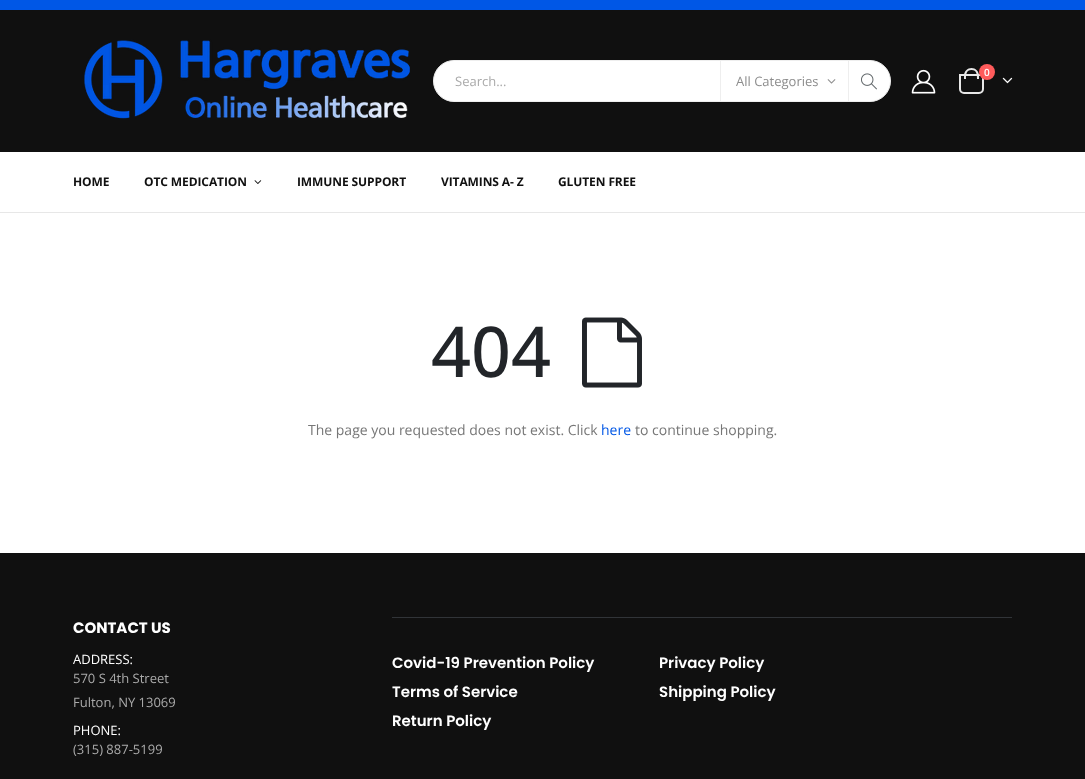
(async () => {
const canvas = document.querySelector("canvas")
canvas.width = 1085
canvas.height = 779
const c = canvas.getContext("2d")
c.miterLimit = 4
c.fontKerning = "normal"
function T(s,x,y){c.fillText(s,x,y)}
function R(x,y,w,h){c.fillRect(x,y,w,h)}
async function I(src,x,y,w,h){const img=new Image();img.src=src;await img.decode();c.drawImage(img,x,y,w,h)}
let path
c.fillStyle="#fff"
R(0,0,1085,779)
c.fillStyle="#0057e6"
R(0,0,1085,10)
c.fillStyle="#101010"
R(0,10,1085,142)
c.fillStyle="#e7e7e7"
R(0,212,1085,1)
await I("1.png",82,39,328,80)
await I("2.png",911,69,25,25)
c.beginPath()
c.roundRect(960,75,23,18,[0,0,4,4])
c.strokeStyle="#e7e7e7"
c.lineWidth=2
c.stroke()
path = new Path2D("M971.5 68c4 0 7.5 3.5 7.5 7.5v3.5h-15v-3.5c0-4 3.5-7.5 7.5-7.5zm0 2c5.5 0 5.5 5 5.5 9h-11c0-4 0-9 5.5-9z")
c.fill(path,"evenodd")
c.fillStyle="#ff5b5b"
c.beginPath()
c.arc(987,72,8,0,7)
c.fill()
c.font="600 10px Open Sans"
c.fillStyle="#fff"
T("0",984,76)
await I("3.png",1002,77,11,7)
c.beginPath()
c.roundRect(433.5,60.5,457,41,20.5)
c.fill()
c.strokeStyle="#eee"
c.lineWidth=1
c.stroke()
c.font="13px Open Sans"
c.fillStyle="#aaa"
T("Search...",455,86)
c.fillStyle="#eee"
R(848,61,1,40)
R(720,61,1,40)
c.fillStyle="#8d8d8d"
T("All Categories",736,86)
await I("4.png",827,79,9,5)
await I("5.png",861,73,16,17)
c.letterSpacing="-0.1px"
c.font="bold 12px Open Sans"
c.fillStyle="#101010"
T("HOME",73,186)
T("OTC MEDICATION",144,186)
await I("6.png",254,180,8,4)
T("IMMUNE SUPPORT",297,186)
T("VITAMINS A- Z",441,186)
T("GLUTEN FREE",558,186)
c.letterSpacing="0px"
c.font="500 70px Open Sans"
c.fillStyle="#222529"
T("404",431,377)
await I("7.png",582,317,60,71)
c.font="14px Open Sans"
c.fillStyle="#777"
T("The page you requested does not exist. Click",308,435)
c.fillStyle="#0057e6"
T("here",601,435)
c.fillStyle="#777"
T("to continue shopping.",635,435)
c.fillStyle="#101010"
R(0,553,1085,226)
c.font="bold 15px Poppins"
c.fillStyle="#fff"
T("CONTACT US",73,633)
c.font="13px Open Sans"
T("ADDRESS:",73,664)
c.fillStyle="#aaa"
T("570 S 4th Street",73,683)
T("Fulton, NY 13069",73,707)
c.fillStyle="#fff"
T("PHONE:",73,735)
c.fillStyle="#aaa"
T("(315) 887-5199",73,754)
c.fillStyle="#313438"
R(392,617,620,1)
c.font="600 15px Poppins"
c.fillStyle="#fff"
T("Covid-19 Prevention Policy",392,668)
T("Terms of Service",392,697)
T("Return Policy",392,726)
T("Privacy Policy",659,668)
T("Shipping Policy",659,697)
})()
